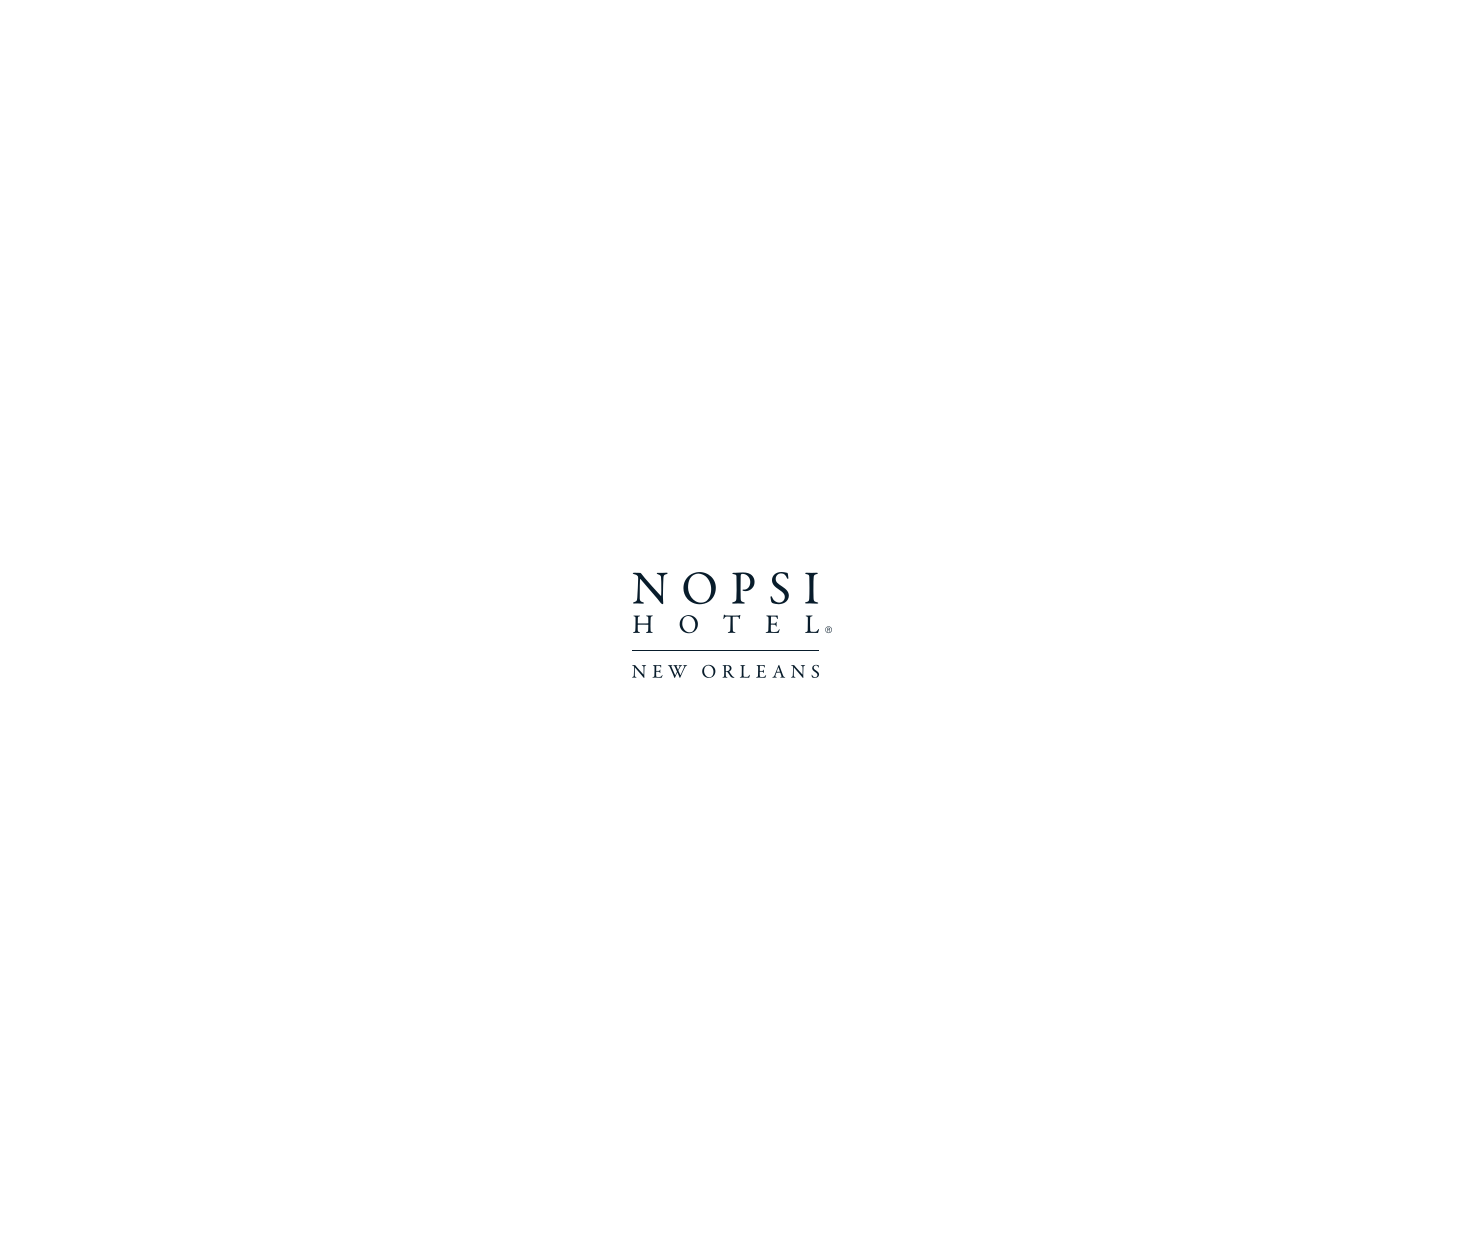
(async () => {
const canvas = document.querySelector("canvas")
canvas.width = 1463
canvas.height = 1250
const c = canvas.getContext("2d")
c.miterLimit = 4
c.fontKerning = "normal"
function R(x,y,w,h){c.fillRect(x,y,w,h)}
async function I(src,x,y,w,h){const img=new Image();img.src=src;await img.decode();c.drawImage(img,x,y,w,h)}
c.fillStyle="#fff"
R(0,0,1463,1250)
await I("1.png",632,572,200,106)
})()
